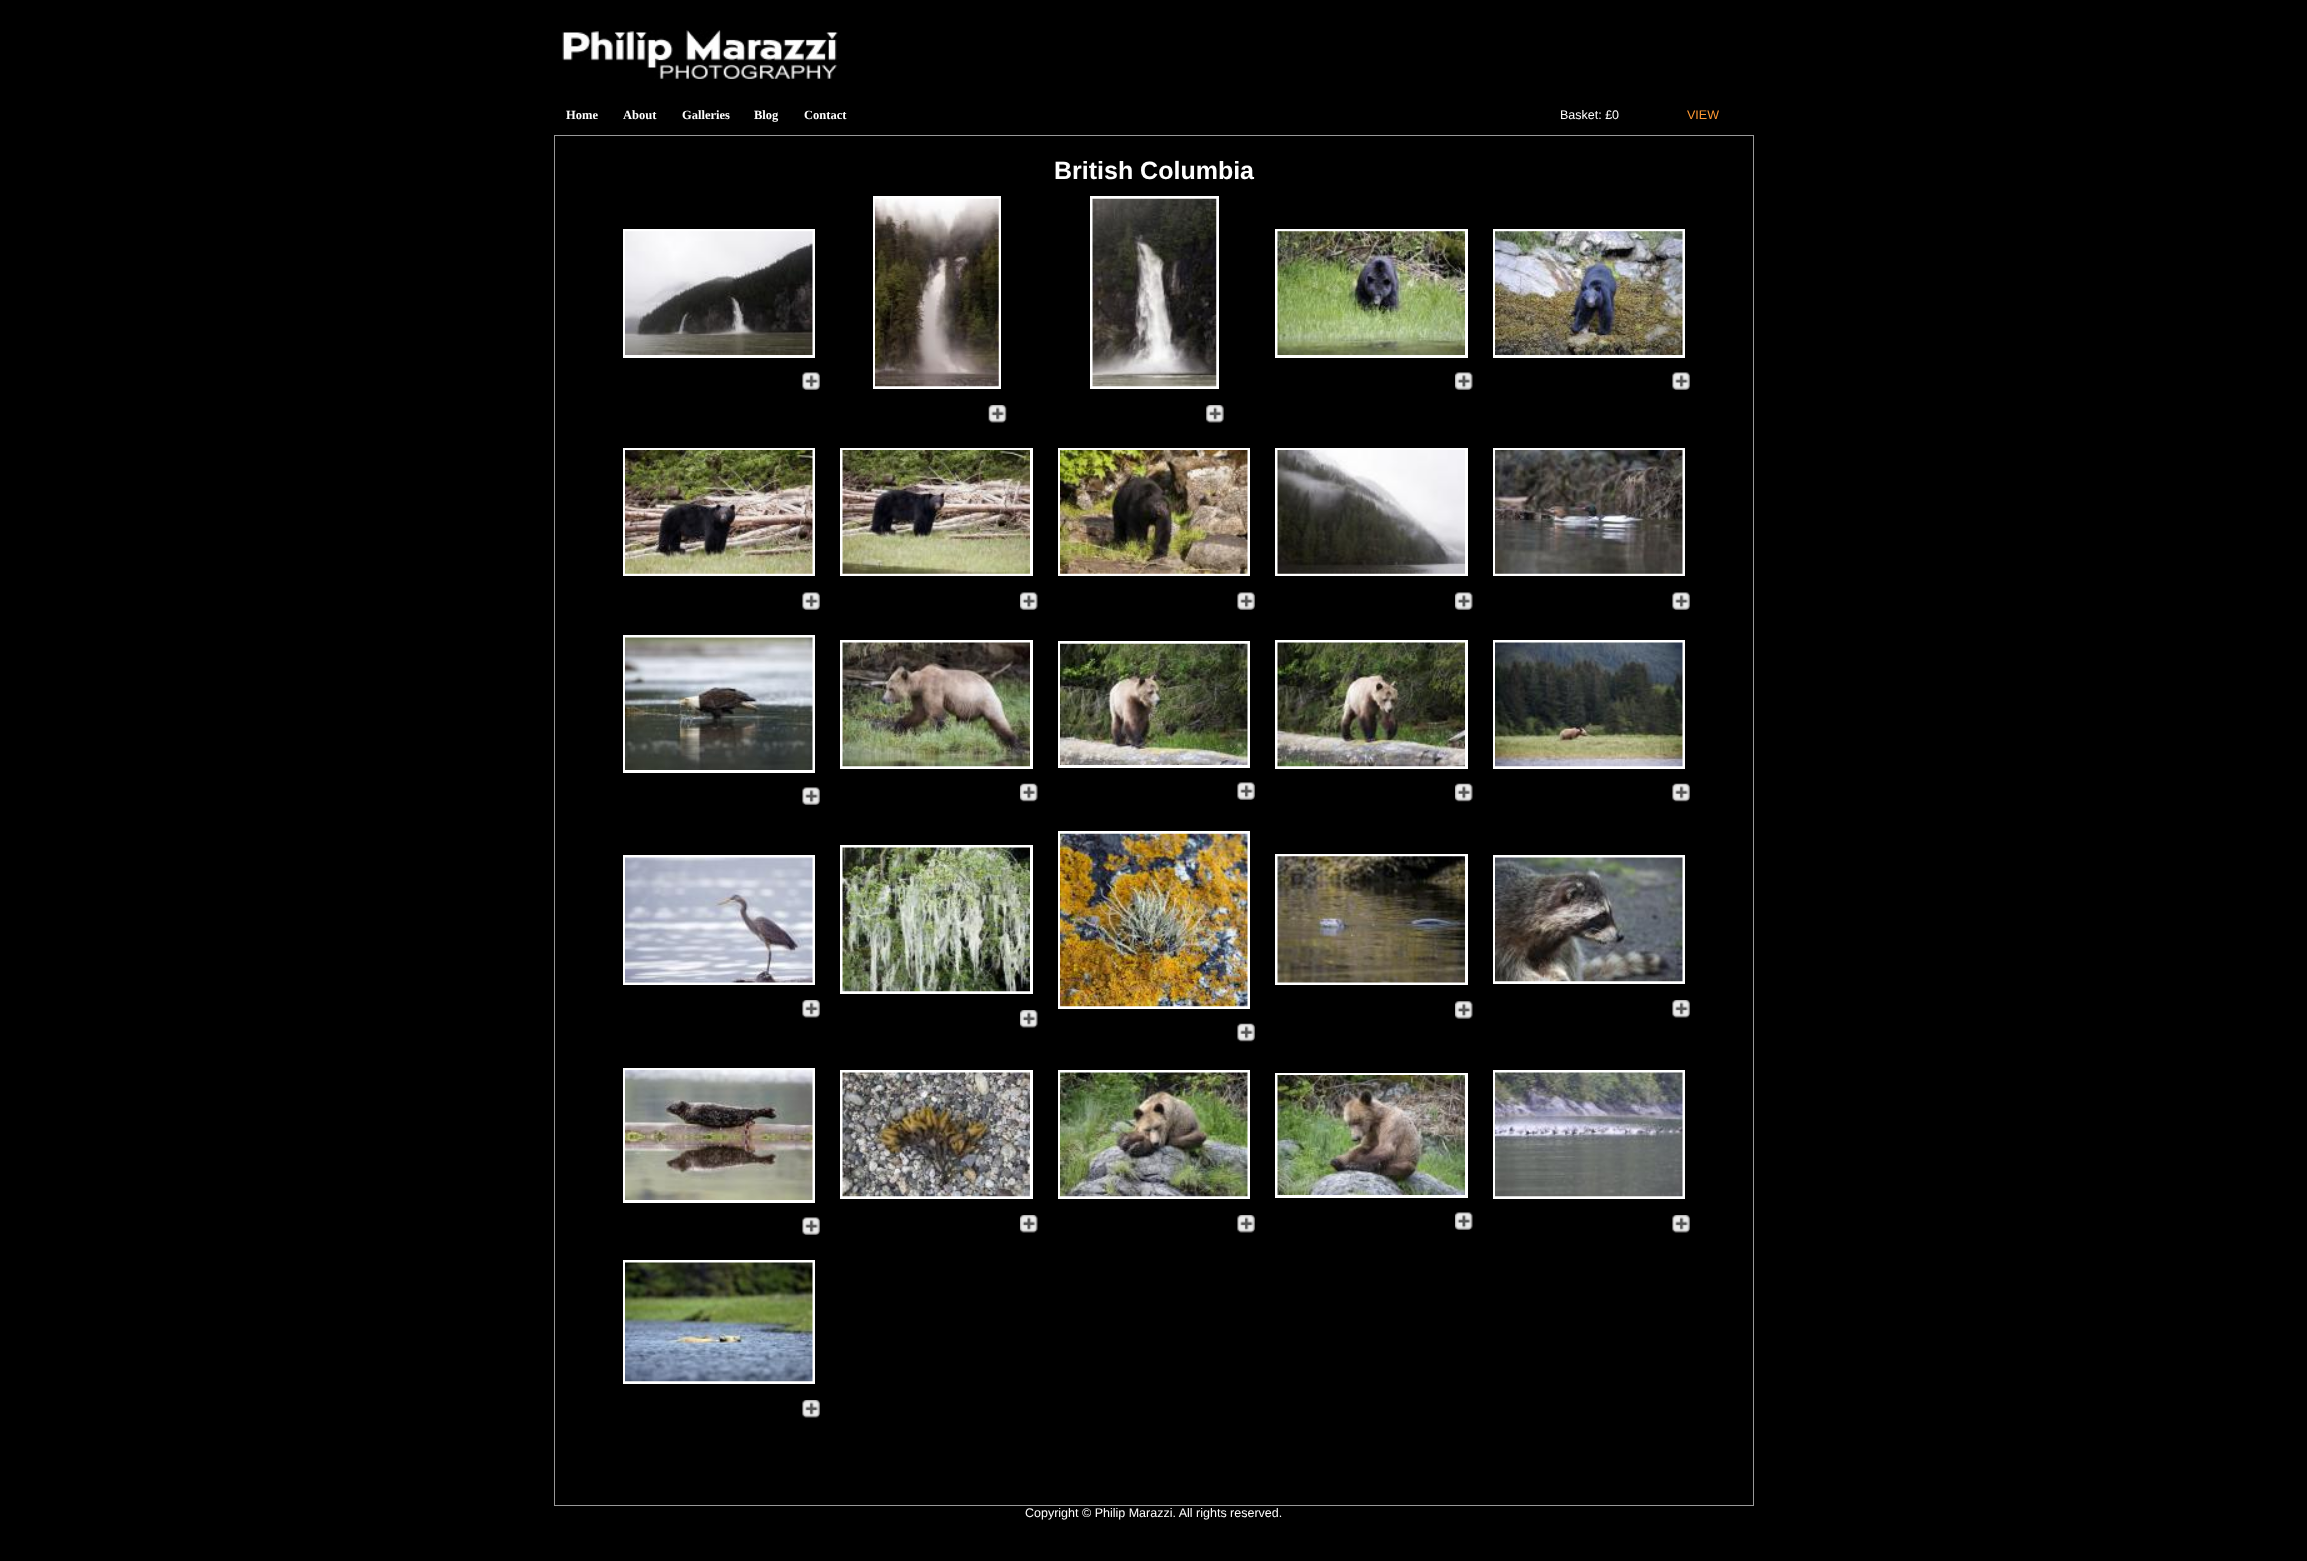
(async () => {
const canvas = document.querySelector("canvas")
canvas.width = 2307
canvas.height = 1561
const c = canvas.getContext("2d")
c.miterLimit = 4
c.fontKerning = "normal"
function T(s,x,y){c.fillText(s,x,y)}
function R(x,y,w,h){c.fillRect(x,y,w,h)}
async function I(src,x,y,w,h){const img=new Image();img.src=src;await img.decode();c.drawImage(img,x,y,w,h)}
c.fillStyle="#000"
R(0,0,2307,1561)
await I("1.png",561,30,279,49)
c.font="bold 12.5px Liberation Serif"
c.fillStyle="#fff"
T("Home",566,119)
T("About",623,119)
T("Galleries",682,119)
T("Blog",754,119)
T("Contact",804,119)
c.font="12.5px Liberation Sans"
T("Basket: £0",1560,119)
c.fillStyle="#f93"
T("VIEW",1687,119)
c.strokeStyle="#999"
c.strokeRect(554.5,135.5,1199,1370)
c.font="bold 25px Liberation Sans"
c.fillStyle="#fff"
T("British Columbia",1054,179)
c.strokeStyle="#fff"
c.lineWidth=3
c.strokeRect(624.5,230.5,189,126)
await I("2.png",625,231,188,124)
await I("3.png",802,372,18,18)
c.strokeRect(874.5,197.5,125,190)
await I("4.png",875,198,124,189)
await I("5.png",988,405,19,18)
c.strokeRect(1091.5,197.5,126,190)
await I("6.png",1092,198,125,189)
await I("7.png",1206,405,18,18)
c.strokeRect(1276.5,230.5,190,126)
await I("8.png",1277,231,188,124)
await I("9.png",1455,372,18,18)
c.strokeRect(1494.5,230.5,189,126)
await I("10.png",1495,231,188,124)
await I("3.png",1672,372,18,18)
c.strokeRect(624.5,449.5,189,125)
await I("11.png",625,450,188,124)
await I("3.png",802,592,18,18)
c.strokeRect(841.5,449.5,190,125)
await I("12.png",842,450,188,124)
await I("9.png",1020,592,18,18)
c.strokeRect(1059.5,449.5,189,125)
await I("13.png",1060,450,188,124)
await I("14.png",1237,592,18,18)
c.strokeRect(1276.5,449.5,190,125)
await I("15.png",1277,450,188,124)
await I("9.png",1455,592,18,18)
c.strokeRect(1494.5,449.5,189,125)
await I("16.png",1495,450,188,124)
await I("3.png",1672,592,18,18)
c.strokeRect(624.5,636.5,189,135)
await I("17.png",625,637,188,133)
await I("3.png",802,787,18,18)
c.strokeRect(841.5,641.5,190,126)
await I("18.png",842,642,188,125)
await I("19.png",1020,783,18,19)
c.strokeRect(1059.5,642.5,189,124)
await I("20.png",1060,643,188,122)
await I("14.png",1237,782,18,18)
c.strokeRect(1276.5,641.5,190,126)
await I("21.png",1277,642,188,125)
await I("19.png",1455,783,18,19)
c.strokeRect(1494.5,641.5,189,126)
await I("22.png",1495,642,188,125)
await I("23.png",1672,783,18,19)
c.strokeRect(624.5,856.5,189,127)
await I("24.png",625,857,188,126)
await I("25.png",802,1000,18,18)
c.strokeRect(841.5,846.5,190,146)
await I("26.png",842,847,188,145)
await I("27.png",1020,1010,18,18)
c.strokeRect(1059.5,832.5,189,175)
await I("28.png",1060,833,188,174)
await I("29.png",1237,1023,18,19)
c.strokeRect(1276.5,855.5,190,128)
await I("30.png",1277,856,188,127)
await I("31.png",1455,1001,18,18)
c.strokeRect(1494.5,856.5,189,126)
await I("32.png",1495,857,188,125)
await I("25.png",1672,1000,18,18)
c.strokeRect(624.5,1069.5,189,132)
await I("33.png",625,1070,188,130)
await I("3.png",802,1217,18,18)
c.strokeRect(841.5,1071.5,190,126)
await I("34.png",842,1072,188,125)
await I("27.png",1020,1215,18,18)
c.strokeRect(1059.5,1071.5,189,126)
await I("35.png",1060,1072,188,125)
await I("36.png",1237,1215,18,18)
c.strokeRect(1276.5,1074.5,190,122)
await I("37.png",1277,1075,188,120)
await I("9.png",1455,1212,18,18)
c.strokeRect(1494.5,1071.5,189,126)
await I("38.png",1495,1072,188,125)
await I("25.png",1672,1215,18,18)
c.strokeRect(624.5,1261.5,189,121)
await I("39.png",625,1262,188,120)
await I("25.png",802,1400,18,18)
c.font="12.5px Liberation Sans"
T("Copyright © Philip Marazzi. All rights reserved.",1025,1517)
})()
